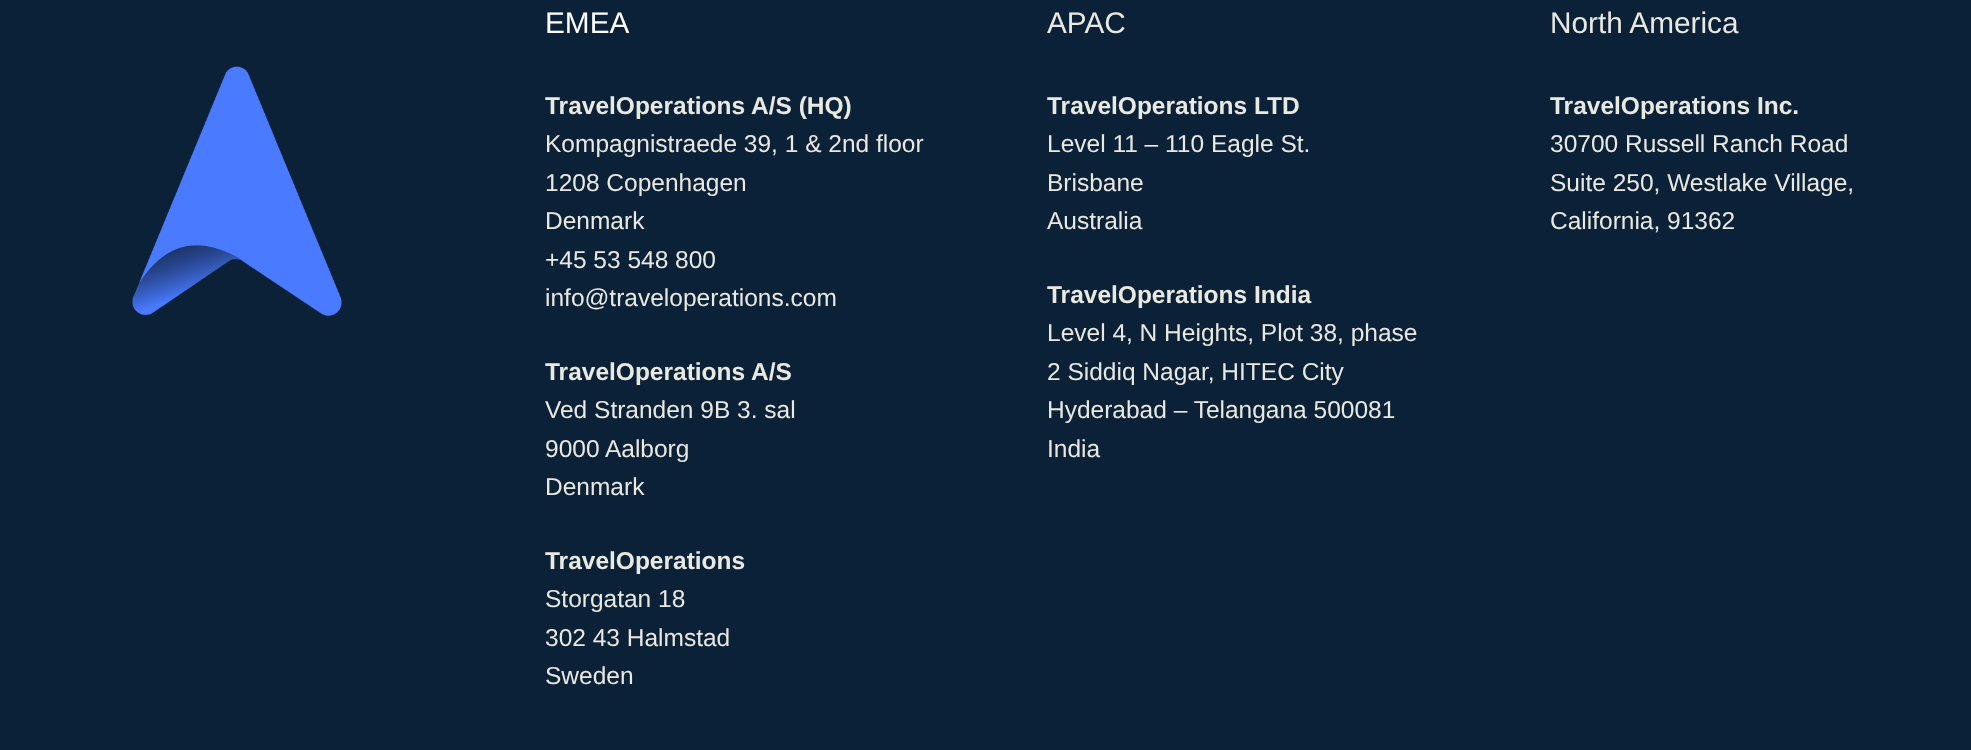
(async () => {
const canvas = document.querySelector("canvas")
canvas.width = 1971
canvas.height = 750
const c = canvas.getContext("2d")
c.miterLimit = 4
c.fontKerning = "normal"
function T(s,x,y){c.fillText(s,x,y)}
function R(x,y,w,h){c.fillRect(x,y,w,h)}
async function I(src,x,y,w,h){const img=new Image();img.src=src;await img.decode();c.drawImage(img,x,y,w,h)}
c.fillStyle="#0a2138"
R(0,0,1971,750)
await I("1.png",132,66,210,250)
c.font="29.75px Liberation Sans"
c.fillStyle="#fefefe"
T("EMEA",545,33)
c.font="bold 24.5px Liberation Sans"
c.fillStyle="#e9e8e1"
T("TravelOperations A/S (HQ)",545,114)
c.font="24.5px Liberation Sans"
T("Kompagnistraede 39, 1 & 2nd floor",545,152)
T("1208 Copenhagen",545,191)
T("Denmark",545,229)
T("+45 53 548 800",545,268)
T("info@traveloperations.com",545,306)
c.font="bold 24.5px Liberation Sans"
T("TravelOperations A/S",545,380)
c.font="24.5px Liberation Sans"
T("Ved Stranden 9B 3. sal",545,418)
T("9000 Aalborg",545,457)
T("Denmark",545,495)
c.font="bold 24.5px Liberation Sans"
T("TravelOperations",545,569)
c.font="24.5px Liberation Sans"
T("Storgatan 18",545,607)
T("302 43 Halmstad",545,646)
T("Sweden",545,684)
c.font="29.75px Liberation Sans"
T("APAC",1047,33)
c.font="bold 24.5px Liberation Sans"
T("TravelOperations LTD",1047,114)
c.font="24.5px Liberation Sans"
T("Level 11 – 110 Eagle St.",1047,152)
T("Brisbane",1047,191)
T("Australia",1047,229)
c.font="bold 24.5px Liberation Sans"
T("TravelOperations India",1047,303)
c.font="24.5px Liberation Sans"
T("Level 4, N Heights, Plot 38, phase",1047,341)
T("2 Siddiq Nagar, HITEC City",1047,380)
T("Hyderabad – Telangana 500081",1047,418)
T("India",1047,457)
c.font="29.75px Liberation Sans"
T("North America",1550,33)
c.font="bold 24.5px Liberation Sans"
T("TravelOperations Inc.",1550,114)
c.font="24.5px Liberation Sans"
T("30700 Russell Ranch Road",1550,152)
T("Suite 250, Westlake Village,",1550,191)
T("California, 91362",1550,229)
})()
